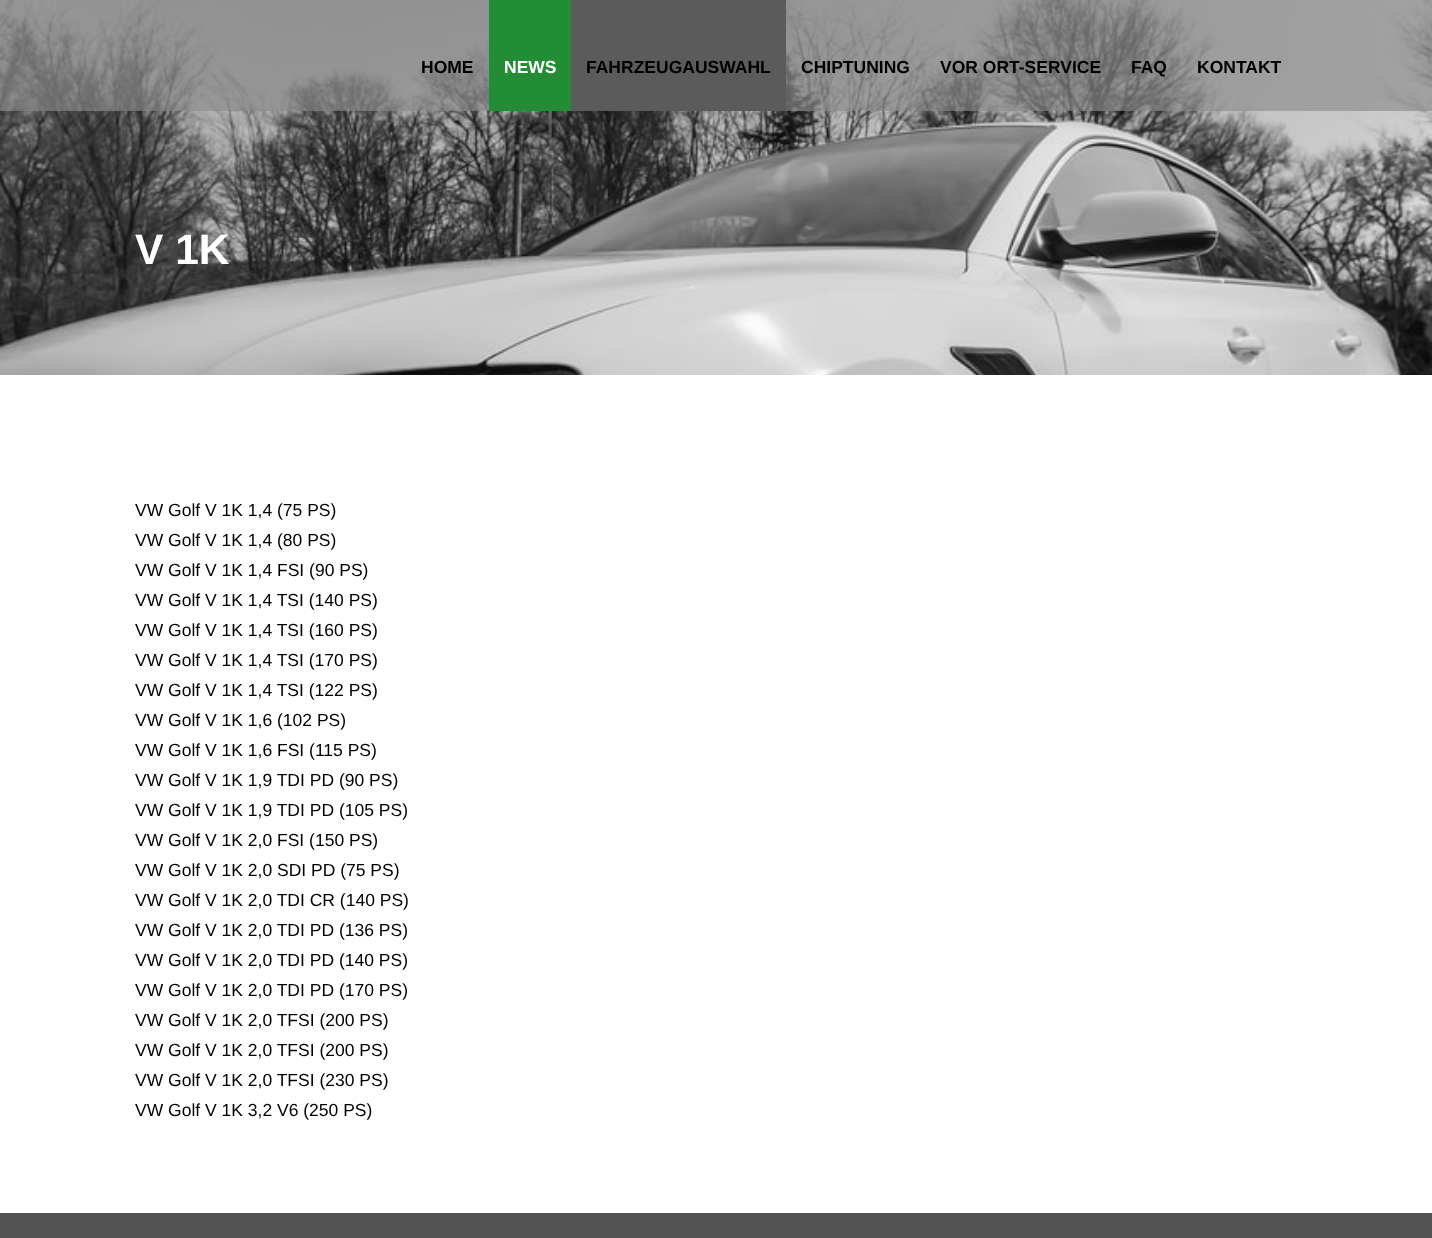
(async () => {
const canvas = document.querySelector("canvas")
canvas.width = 1432
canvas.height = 1238
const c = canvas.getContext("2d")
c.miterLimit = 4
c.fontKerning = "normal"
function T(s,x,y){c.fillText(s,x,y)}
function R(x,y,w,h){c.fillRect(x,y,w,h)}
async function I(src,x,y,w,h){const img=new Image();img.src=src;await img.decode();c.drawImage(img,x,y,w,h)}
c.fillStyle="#fff"
R(0,0,1432,1238)
await I("1.png",0,0,1432,375)
c.fillStyle="#8b8b8ba6"
R(0,0,1432,111)
c.font="bold 17.5px Liberation Sans"
c.fillStyle="#000"
T("HOME",421,73)
c.fillStyle="#238d36"
R(489,0,82,111)
c.fillStyle="#fff"
T("NEWS",504,73)
c.fillStyle="#5b5b5b"
R(571,0,215,111)
c.fillStyle="#000"
T("FAHRZEUGAUSWAHL",586,73)
T("CHIPTUNING",801,73)
T("VOR ORT-SERVICE",940,73)
T("FAQ",1131,73)
T("KONTAKT",1197,73)
c.font="bold 42.5px Liberation Sans"
c.fillStyle="#fff"
T("V 1K",135,264)
c.font="17.5px Liberation Sans"
c.fillStyle="#000"
T("VW Golf V 1K 1,4 (75 PS)",135,516)
T("VW Golf V 1K 1,4 (80 PS)",135,546)
T("VW Golf V 1K 1,4 FSI (90 PS)",135,576)
T("VW Golf V 1K 1,4 TSI (140 PS)",135,606)
T("VW Golf V 1K 1,4 TSI (160 PS)",135,636)
T("VW Golf V 1K 1,4 TSI (170 PS)",135,666)
T("VW Golf V 1K 1,4 TSI (122 PS)",135,696)
T("VW Golf V 1K 1,6 (102 PS)",135,726)
T("VW Golf V 1K 1,6 FSI (115 PS)",135,756)
T("VW Golf V 1K 1,9 TDI PD (90 PS)",135,786)
T("VW Golf V 1K 1,9 TDI PD (105 PS)",135,816)
T("VW Golf V 1K 2,0 FSI (150 PS)",135,846)
T("VW Golf V 1K 2,0 SDI PD (75 PS)",135,876)
T("VW Golf V 1K 2,0 TDI CR (140 PS)",135,906)
T("VW Golf V 1K 2,0 TDI PD (136 PS)",135,936)
T("VW Golf V 1K 2,0 TDI PD (140 PS)",135,966)
T("VW Golf V 1K 2,0 TDI PD (170 PS)",135,996)
T("VW Golf V 1K 2,0 TFSI (200 PS)",135,1026)
T("VW Golf V 1K 2,0 TFSI (200 PS)",135,1056)
T("VW Golf V 1K 2,0 TFSI (230 PS)",135,1086)
T("VW Golf V 1K 3,2 V6 (250 PS)",135,1116)
c.fillStyle="#525252"
R(0,1213,1432,25)
})()
